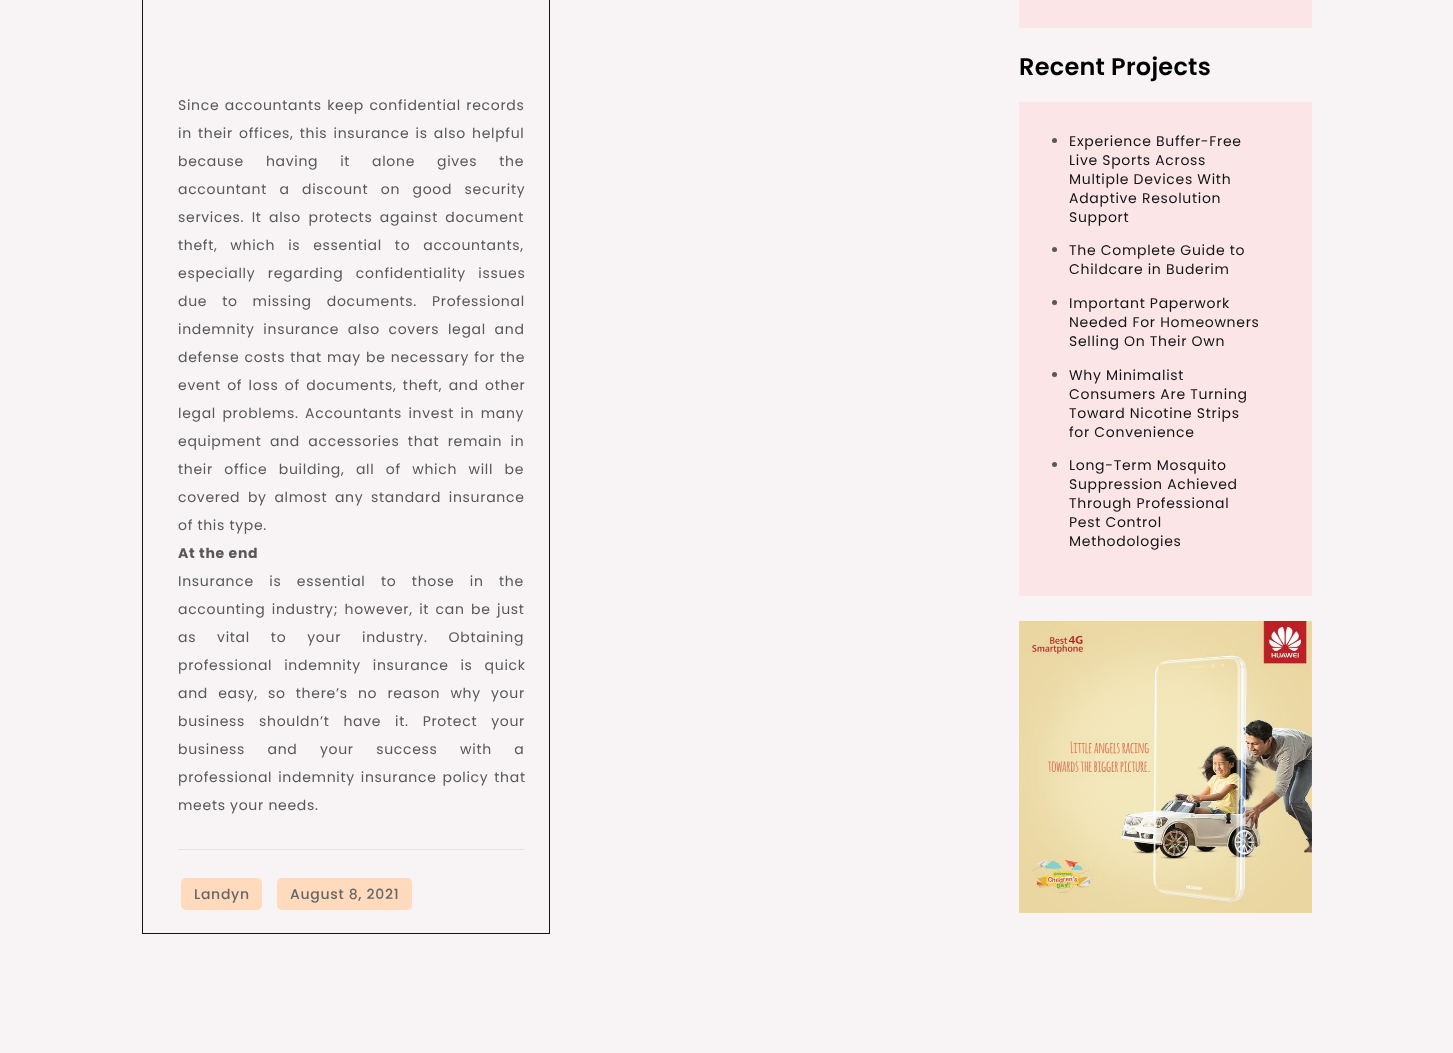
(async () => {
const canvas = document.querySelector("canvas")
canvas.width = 1453
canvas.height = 1053
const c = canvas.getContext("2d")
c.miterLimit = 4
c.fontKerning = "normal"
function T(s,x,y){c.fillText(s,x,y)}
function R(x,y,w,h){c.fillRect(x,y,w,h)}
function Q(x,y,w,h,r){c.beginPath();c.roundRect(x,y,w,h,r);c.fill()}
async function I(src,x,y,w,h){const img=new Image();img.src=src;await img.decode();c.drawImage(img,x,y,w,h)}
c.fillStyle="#f8f3f4"
R(0,0,1453,1053)
c.strokeStyle="#121418"
c.strokeRect(142.5,-.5,407,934)
c.letterSpacing="0.7px"
c.wordSpacing="1px"
c.font="14px Poppins"
c.fillStyle="#565859"
T("Since accountants keep confidential records",178,110)
c.wordSpacing="1.75px"
T("in their offices, this insurance is also helpful",178,138)
c.wordSpacing="17.5px"
T("because having it alone gives the",178,166)
c.wordSpacing="8px"
T("accountant a discount on good security",178,194)
c.wordSpacing="3px"
T("services. It also protects against document",178,222)
c.wordSpacing="8.5px"
T("theft, which is essential to accountants,",178,250)
c.wordSpacing="8px"
T("especially regarding confidentiality issues",178,278)
c.wordSpacing="10.5px"
T("due to missing documents. Professional",178,306)
c.wordSpacing="4.25px"
T("indemnity insurance also covers legal and",178,334)
c.wordSpacing="0.75px"
T("defense costs that may be necessary for the",178,362)
c.wordSpacing="2px"
T("event of loss of documents, theft, and other",178,390)
T("legal problems. Accountants invest in many",178,418)
c.wordSpacing="4px"
T("equipment and accessories that remain in",178,446)
c.wordSpacing="7px"
T("their office building, all of which will be",178,474)
c.wordSpacing="3.25px"
T("covered by almost any standard insurance",178,502)
c.wordSpacing="0px"
T("of this type.",178,530)
c.font="bold 14px Poppins"
T("At the end",178,558)
c.wordSpacing="11px"
c.font="14px Poppins"
T("Insurance is essential to those in the",178,586)
c.wordSpacing="2px"
T("accounting industry; however, it can be just",178,614)
c.wordSpacing="16.5px"
T("as vital to your industry. Obtaining",178,642)
c.wordSpacing="7.5px"
T("professional indemnity insurance is quick",178,670)
c.wordSpacing="5.75px"
T("and easy, so there’s no reason why your",178,698)
c.wordSpacing="9.5px"
T("business shouldn’t have it. Protect your",178,726)
c.wordSpacing="18px"
T("business and your success with a",178,754)
c.wordSpacing="1.5px"
T("professional indemnity insurance policy that",178,782)
c.wordSpacing="0px"
T("meets your needs.",178,810)
c.fillStyle="#e4e4e4"
R(178,849,346,1)
c.fillStyle="#ffdabc"
Q(181,878,81,32,5)
c.font="500 14px Poppins"
c.fillStyle="#666"
T("Landyn",194,899)
c.fillStyle="#ffdabc"
Q(277,878,135,32,5)
c.fillStyle="#666"
T("August 8, 2021",290,899)
c.fillStyle="#fce5e6"
R(1019,0,293,28)
c.letterSpacing="0.25px"
c.font="600 24px Poppins"
c.fillStyle="#000"
T("Recent Projects",1019,75)
c.fillStyle="#fce5e6"
R(1019,102,293,494)
c.fillStyle="#565859"
c.beginPath()
c.arc(1054.5,140.5,2.5,0,7)
c.fill()
c.letterSpacing="0.7px"
c.font="14px Poppins"
c.fillStyle="#121418"
T("Experience Buffer-Free",1069,146)
T("Live Sports Across",1069,165)
T("Multiple Devices With",1069,184)
T("Adaptive Resolution",1069,203)
T("Support",1069,222)
c.fillStyle="#565859"
c.beginPath()
c.arc(1054.5,249.5,2.5,0,7)
c.fill()
c.fillStyle="#121418"
T("The Complete Guide to",1069,255)
T("Childcare in Buderim",1069,274)
c.fillStyle="#565859"
c.beginPath()
c.arc(1054.5,302.5,2.5,0,7)
c.fill()
c.fillStyle="#121418"
T("Important Paperwork",1069,308)
T("Needed For Homeowners",1069,327)
T("Selling On Their Own",1069,346)
c.fillStyle="#565859"
c.beginPath()
c.arc(1054.5,374.5,2.5,0,7)
c.fill()
c.fillStyle="#121418"
T("Why Minimalist",1069,380)
T("Consumers Are Turning",1069,399)
T("Toward Nicotine Strips",1069,418)
T("for Convenience",1069,437)
c.fillStyle="#565859"
c.beginPath()
c.arc(1054.5,464.5,2.5,0,7)
c.fill()
c.fillStyle="#121418"
T("Long-Term Mosquito",1069,470)
T("Suppression Achieved",1069,489)
T("Through Professional",1069,508)
T("Pest Control",1069,527)
T("Methodologies",1069,546)
await I("1.png",1019,620,293,293)
})()
